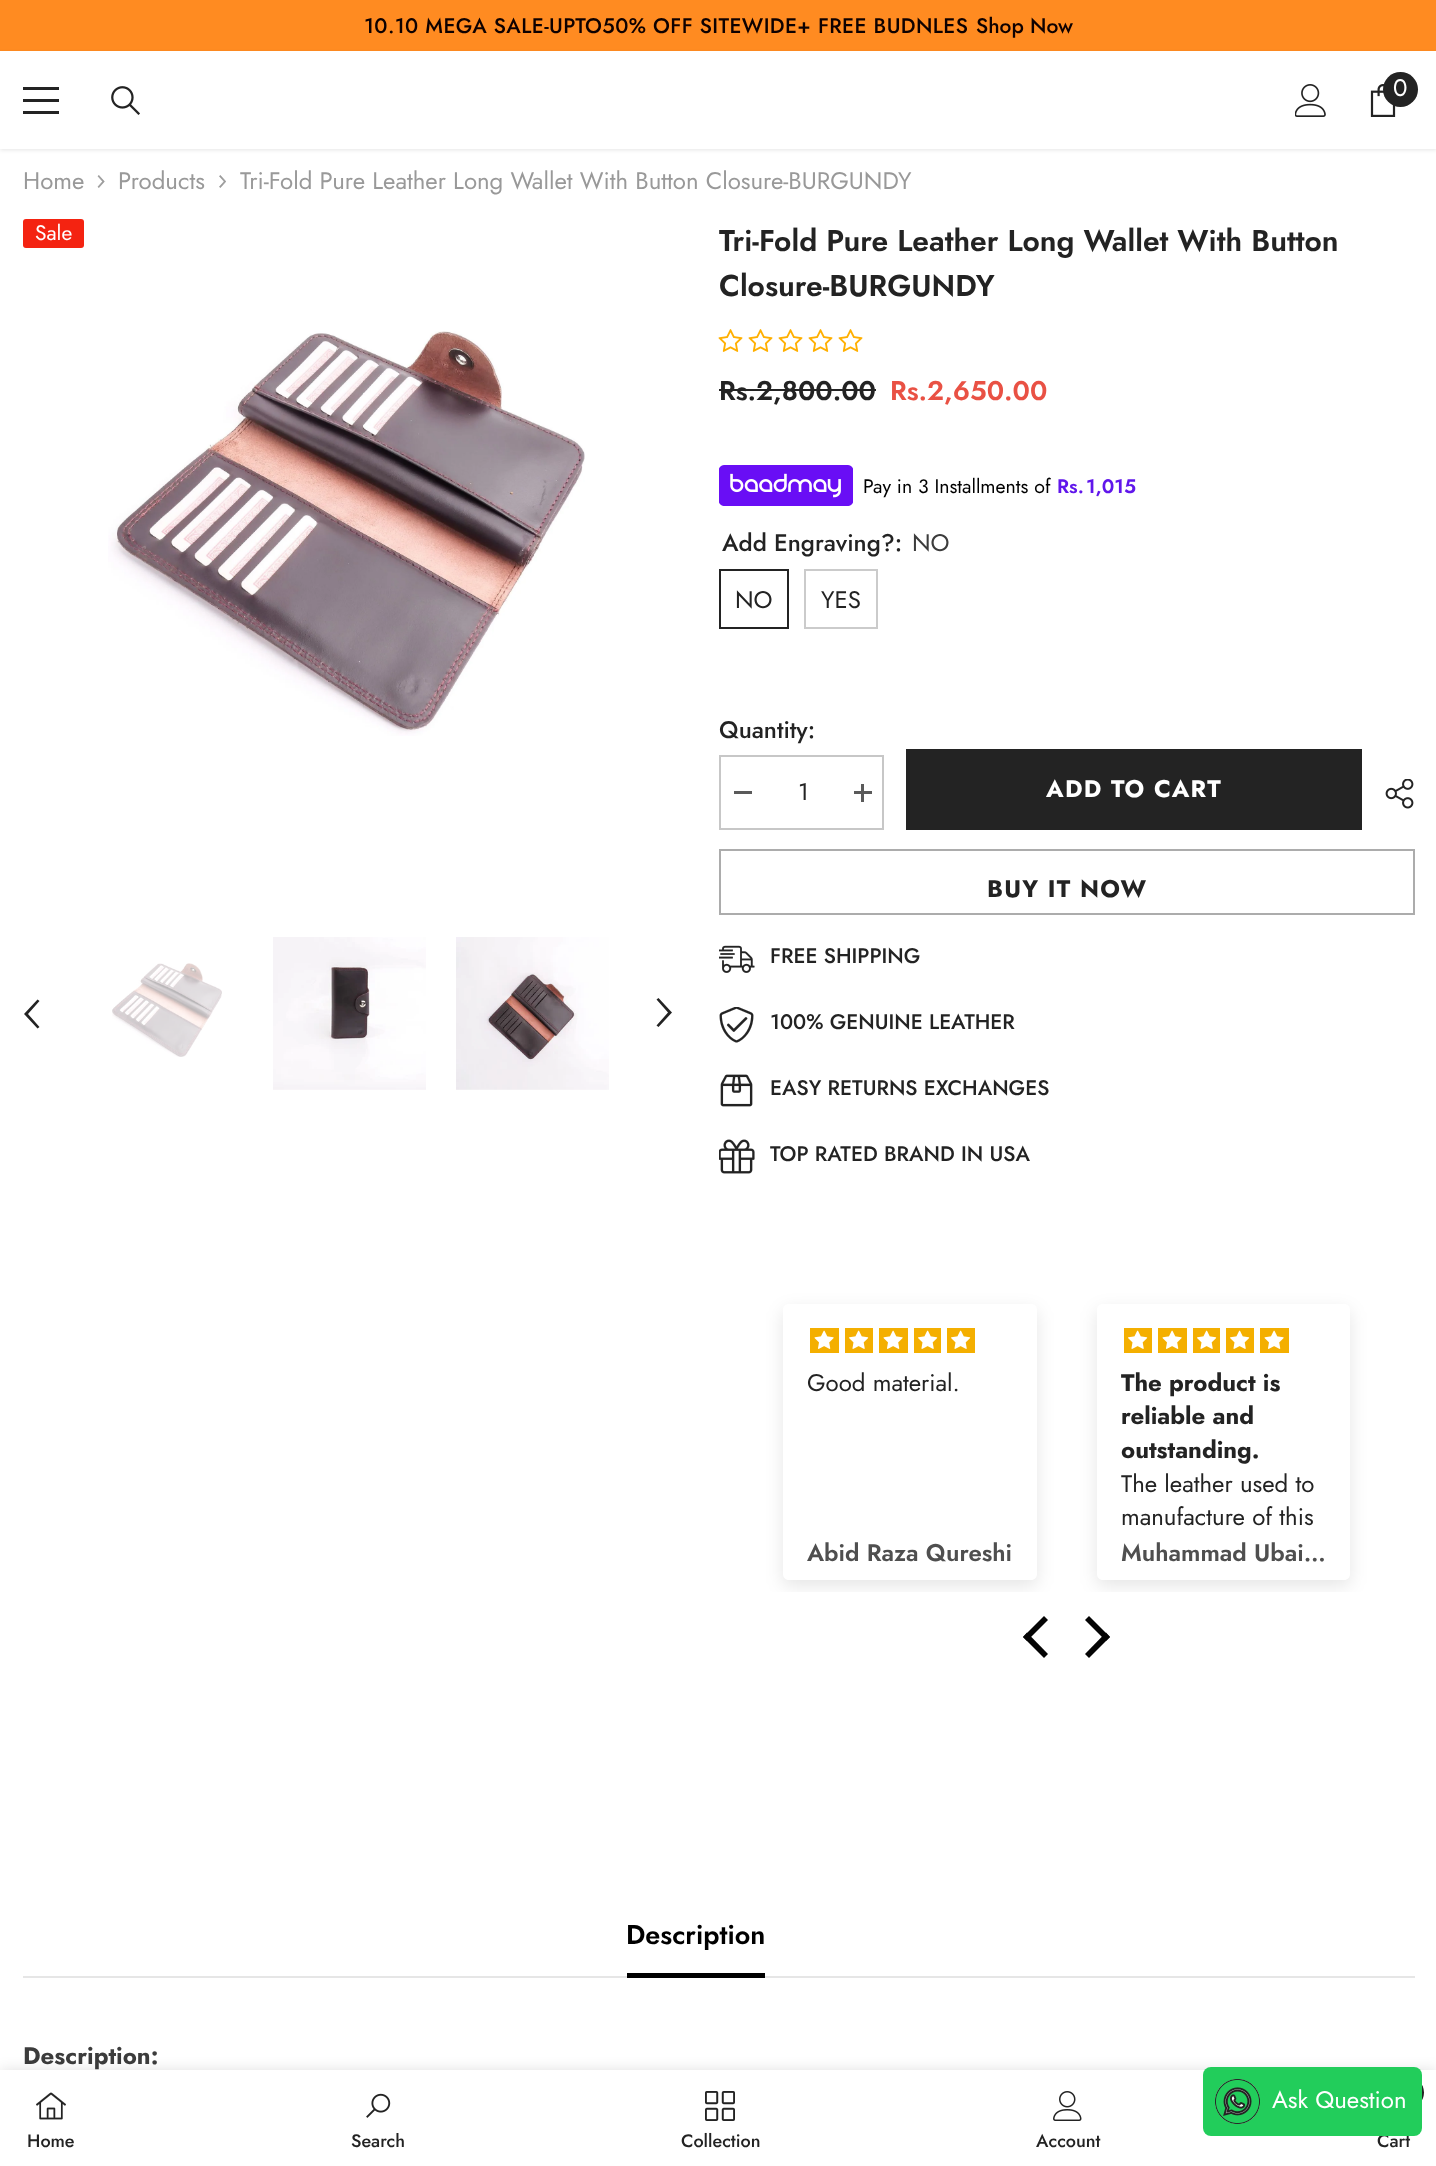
(async () => {
const canvas = document.querySelector("canvas")
canvas.width = 1436
canvas.height = 2166
const c = canvas.getContext("2d")
c.miterLimit = 4
c.fontKerning = "normal"
function T(s,x,y){c.fillText(s,x,y)}
function R(x,y,w,h){c.fillRect(x,y,w,h)}
function Q(x,y,w,h,r){c.beginPath();c.roundRect(x,y,w,h,r);c.fill()}
async function I(src,x,y,w,h){const img=new Image();img.src=src;await img.decode();c.drawImage(img,x,y,w,h)}
let path
c.fillStyle="#fff"
R(0,0,1436,2166)
c.fillStyle="#ff8b21"
R(0,0,1436,51)
c.letterSpacing="0.4px"
c.font="500 21px Jost"
c.fillStyle="#0e0101"
T("10.10 MEGA SALE-UPTO50% OFF SITEWIDE+ FREE BUDNLES",364,33)
c.letterSpacing="0px"
T("Shop Now",976,33)
c.fillStyle="#0000001a"
c.filter="blur(2px)"
c.beginPath()
c.rect(0,53,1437,97)
c.fill()
c.filter="none"
c.fillStyle="#fff"
R(0,51,1436,98)
c.fillStyle="#232323"
R(23,99,36,3)
R(23,87,36,3)
R(23,111,36,3)
await I("1.png",111,86,29,29)
await I("2.png",1295,84,31,33)
await I("3.png",1370,84,26,33)
c.beginPath()
c.arc(1400.5,89.5,17.5,0,7)
c.fill()
c.font="24px Jost"
c.fillStyle="#fff"
T("0",1393,96)
c.fillStyle="#999"
T("Home",23,189)
await I("4.png",97,175,8,13)
T("Products",118,189)
await I("5.png",219,175,7,13)
T("Tri-Fold Pure Leather Long Wallet With Button Closure-BURGUNDY",240,189)
c.fillStyle="#f42311"
Q(23,219,61,29,3)
c.font="21px Jost"
c.fillStyle="#fff"
T("Sale",35,240)
await I("6.png",108,331,477,405)
c.fillStyle="#232323"
path = new Path2D("M37.5 1028.5l2-1.5l-11.5-13l11.5-13l-2-1.5l-13.5 14.5l1 1z")
c.fill(path)
await I("7.png",112,963,110,94)
await I("8.png",273,937,153,153)
await I("9.png",456,937,153,153)
path = new Path2D("M658.5 998l-2 1.5l11.5 13l-11.5 13l2 1.5l13.5-14.5l-1-1z")
c.fill(path)
c.font="600 30px Jost"
T("Tri-Fold Pure Leather Long Wallet With Button",719,251)
T("Closure-BURGUNDY",719,296)
await I("10.png",718,329,25,23)
await I("10.png",748,329,25,23)
await I("10.png",778,329,25,23)
await I("10.png",808,329,25,23)
await I("10.png",838,329,25,23)
c.font="600 27px Jost"
T("Rs.2,800.00",719,400)
R(719,389,157,2)
c.fillStyle="#e95144"
T("Rs.2,650.00",890,400)
await I("11.png",719,465,134,41)
c.font="19.5px Jost"
c.fillStyle="#000"
T("Pay in 3 Installments of",863,493)
c.font="600 19.5px Jost"
c.fillStyle="#6016eb"
T("Rs.",1057,493)
T("1,015",1086,493)
c.font="500 24px Jost"
c.fillStyle="#232323"
T("Add Engraving?:",722,551)
c.font="24px Jost"
c.fillStyle="#3c3c3c"
T("NO",912,551)
c.strokeStyle="#232323"
c.lineWidth=2
c.strokeRect(720,570,68,58)
c.fillStyle="#232323"
T("NO",735,608)
c.strokeStyle="#cbcbcb"
c.strokeRect(805,570,72,58)
T("YES",821,608)
c.font="500 24px Jost"
T("Quantity:",719,738)
c.strokeStyle="#c7c7c7"
c.strokeRect(720,756,163,73)
c.fillStyle="#5a5a5a"
R(734,791,18,3)
c.font="24px Jost"
c.fillStyle="#232323"
T("1",798,800)
c.fillStyle="#5a5a5a"
R(854,791,18,3)
R(861,784,3,18)
c.fillStyle="#232323"
R(906,749,456,81)
c.letterSpacing="1.25px"
c.font="bold 24px Jost"
c.fillStyle="#fff"
T("ADD TO CART",1046,797)
await I("12.png",1385,779,29,30)
c.strokeStyle="#acacac"
c.strokeRect(720,850,694,64)
c.fillStyle="#232323"
T("BUY IT NOW",987,897)
await I("13.png",719,945,36,28)
c.letterSpacing="0px"
c.font="500 21px Jost"
T("FREE SHIPPING",770,963)
await I("14.png",719,1007,35,36)
T("100% GENUINE LEATHER",770,1029)
await I("15.png",720,1074,33,33)
T("EASY RETURNS EXCHANGES",770,1095)
await I("16.png",719,1139,36,35)
T("TOP RATED BRAND IN USA",770,1161)
c.save()
c.beginPath()
c.rect(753,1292,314,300)
c.clip()
path = new Path2D("M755 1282h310v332h-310zm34 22h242c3.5 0 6 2.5 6 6v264c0 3.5-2.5 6-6 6h-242c-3.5 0-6-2.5-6-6v-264c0-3.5 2.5-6 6-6z")
c.clip(path,"evenodd")
c.fillStyle="#0000001a"
c.filter="blur(9px)"
c.beginPath()
c.roundRect(783,1310,254,276,6)
c.fill()
c.filter="none"
c.restore()
c.fillStyle="#f4af00"
R(810,1328,29,25)
R(845,1328,28,25)
R(879,1328,29,25)
R(914,1328,27,25)
R(947,1328,28,25)
await I("17.png",814,1330,20,19)
await I("18.png",849,1330,20,19)
await I("17.png",883,1330,20,19)
await I("18.png",918,1330,20,19)
await I("18.png",951,1330,20,19)
c.font="24px Jost"
c.fillStyle="#232323"
T("Good material.",807,1391)
c.font="600 24px Jost"
c.fillStyle="#4f4f4f"
T("Abid Raza Qureshi",807,1561)
c.save()
c.beginPath()
c.rect(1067,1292,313,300)
c.clip()
path = new Path2D("M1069 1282h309v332h-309zm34 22h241c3.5 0 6 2.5 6 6v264c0 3.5-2.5 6-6 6h-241c-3.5 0-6-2.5-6-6v-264c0-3.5 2.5-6 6-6z")
c.clip(path,"evenodd")
c.fillStyle="#0000001a"
c.filter="blur(9px)"
c.beginPath()
c.roundRect(1097,1310,253,276,6)
c.fill()
c.filter="none"
c.restore()
c.fillStyle="#f4af00"
R(1124,1328,28,25)
R(1158,1328,29,25)
R(1193,1328,27,25)
R(1226,1328,28,25)
R(1260,1328,29,25)
await I("18.png",1128,1330,20,19)
await I("17.png",1162,1330,20,19)
await I("18.png",1197,1330,20,19)
await I("18.png",1230,1330,20,19)
await I("17.png",1264,1330,20,19)
c.save()
c.beginPath()
c.rect(1121,1328,205,198)
c.clip()
c.font="bold 24px Jost"
c.fillStyle="#232323"
T("The product is",1121,1391)
c.restore()
c.font="bold 24px Jost"
c.fillStyle="#232323"
T("reliable and",1121,1424)
T("outstanding.",1121,1458)
c.font="24px Jost"
T("The leather used to",1121,1492)
T("manufacture of this",1121,1525)
c.font="600 24px Jost"
c.fillStyle="#4f4f4f"
T("Muhammad Ubai…",1121,1561)
c.fillStyle="#040404"
path = new Path2D("M1023 1637l21-21l4 4l-21 21z")
c.fill(path)
path = new Path2D("M1023 1637l4-4.5l21 21.5l-4 4z")
c.fill(path)
path = new Path2D("M1085 1620l4-4l21 21l-4 4z")
c.fill(path)
path = new Path2D("M1085 1654l21-21.5l4 4.5l-21 21z")
c.fill(path)
c.fillStyle="#e6e6e6"
R(23,1976,1392,2)
c.font="600 27px Jost"
c.fillStyle="#000"
T("Description",626,1944)
R(627,1973,138,5)
c.font="bold 24px Jost"
c.fillStyle="#3c3c3c"
T("Description:",23,2064)
c.fillStyle="#0000001f"
c.filter="blur(7px)"
c.beginPath()
c.rect(0,2070,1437,96)
c.fill()
c.filter="none"
c.fillStyle="#fff"
R(0,2070,1436,96)
await I("19.png",36,2092,30,28)
c.font="500 18px Jost"
c.fillStyle="#232323"
T("Home",27,2147)
await I("20.png",366,2093,25,25)
T("Search",351,2147)
await I("21.png",705,2091,30,30)
T("Collection",681,2147)
await I("22.png",1053,2091,29,30)
T("Account",1036,2147)
c.beginPath()
c.arc(1407.5,2092.5,16.5,0,7)
c.fill()
T("Cart",1377,2147)
c.fillStyle="#22cd5b"
Q(1203,2067,219,69,8)
c.fillStyle="#fff"
c.beginPath()
c.arc(1237.5,2101.5,22.5,0,7)
c.fill()
await I("23.png",1215,2079,45,45)
c.font="24px Jost"
T("Ask Question",1272,2108)
})()
